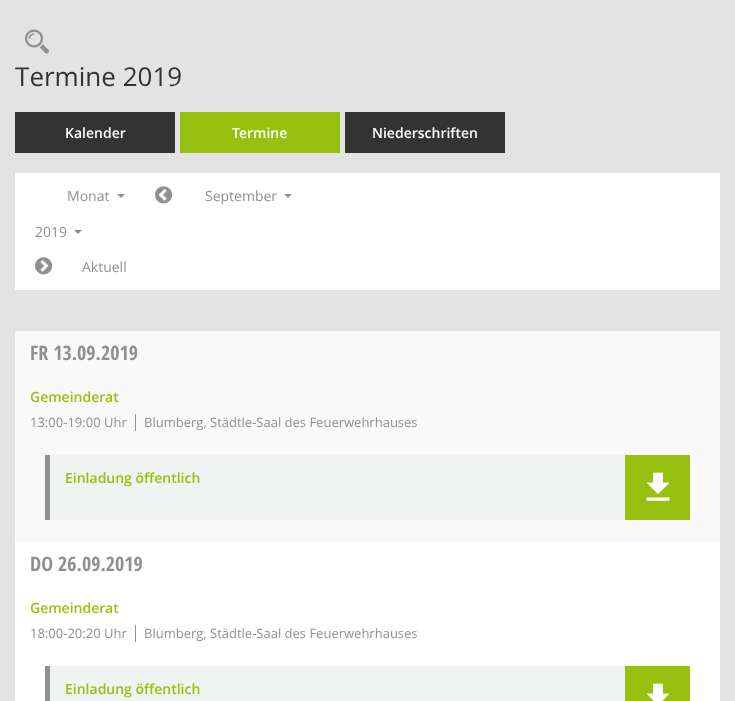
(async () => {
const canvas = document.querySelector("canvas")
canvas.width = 735
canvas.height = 701
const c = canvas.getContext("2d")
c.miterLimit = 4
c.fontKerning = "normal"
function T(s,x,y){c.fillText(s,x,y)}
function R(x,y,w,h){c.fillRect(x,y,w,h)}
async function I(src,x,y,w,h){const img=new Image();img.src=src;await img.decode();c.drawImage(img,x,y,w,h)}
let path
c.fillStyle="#e3e3e3"
R(0,0,735,701)
await I("1.png",25,29,24,25)
c.font="26px Open Sans"
c.fillStyle="#333"
T("Termine 2019",15,86)
c.fillStyle="#dee2e6"
R(175,152,545,1)
c.fillStyle="#333"
R(15,112,160,41)
c.font="600 14px Open Sans"
c.fillStyle="#fff"
T("Kalender",65,138)
c.fillStyle="#98c10f"
R(180,112,160,41)
c.fillStyle="#fff"
T("Termine",232,138)
c.fillStyle="#333"
R(345,112,160,41)
c.fillStyle="#fff"
T("Niederschriften",372,138)
R(15,173,705,117)
c.font="14px Open Sans"
c.fillStyle="#909090"
T("Monat",67,201)
path = new Path2D("M117 194h8l-4 4z")
c.fill(path)
await I("2.png",155,186,18,18)
T("September",205,201)
path = new Path2D("M284 194h8l-4 4z")
c.fill(path)
T("2019",35,237)
path = new Path2D("M74 230h8l-4 4z")
c.fill(path)
await I("3.png",35,257,18,18)
T("Aktuell",82,272)
c.fillStyle="#fff"
R(15,542,705,159)
c.fillStyle="#f9f9f9"
R(15,331,705,211)
c.font="bold 20px Open Sans Condensed"
c.fillStyle="#909090"
T("FR 13.09.2019",30,360)
c.font="600 14px Open Sans"
c.fillStyle="#98c10f"
T("Gemeinderat",30,402)
c.font="13px Open Sans"
c.fillStyle="#909090"
T("13:00-19:00 Uhr",30,427)
R(135,414,1,17)
T("Blumberg, Städtle-Saal des Feuerwehrhauses",144,427)
c.fillStyle="#f0f3f2"
R(50,455,575,65)
c.fillStyle="#909090"
R(45,455,5,65)
c.font="600 14px Open Sans"
c.fillStyle="#98c10f"
T("Einladung öffentlich",65,483)
R(625,455,65,65)
await I("4.png",646,472,24,29)
c.font="bold 20px Open Sans Condensed"
c.fillStyle="#909090"
T("DO 26.09.2019",30,571)
c.font="600 14px Open Sans"
c.fillStyle="#98c10f"
T("Gemeinderat",30,613)
c.font="13px Open Sans"
c.fillStyle="#909090"
T("18:00-20:20 Uhr",30,638)
R(135,625,1,17)
T("Blumberg, Städtle-Saal des Feuerwehrhauses",144,638)
c.fillStyle="#f0f3f2"
R(50,666,575,35)
c.fillStyle="#909090"
R(45,666,5,35)
c.font="600 14px Open Sans"
c.fillStyle="#98c10f"
T("Einladung öffentlich",65,694)
R(625,666,65,35)
await I("5.png",646,683,24,18)
})()
